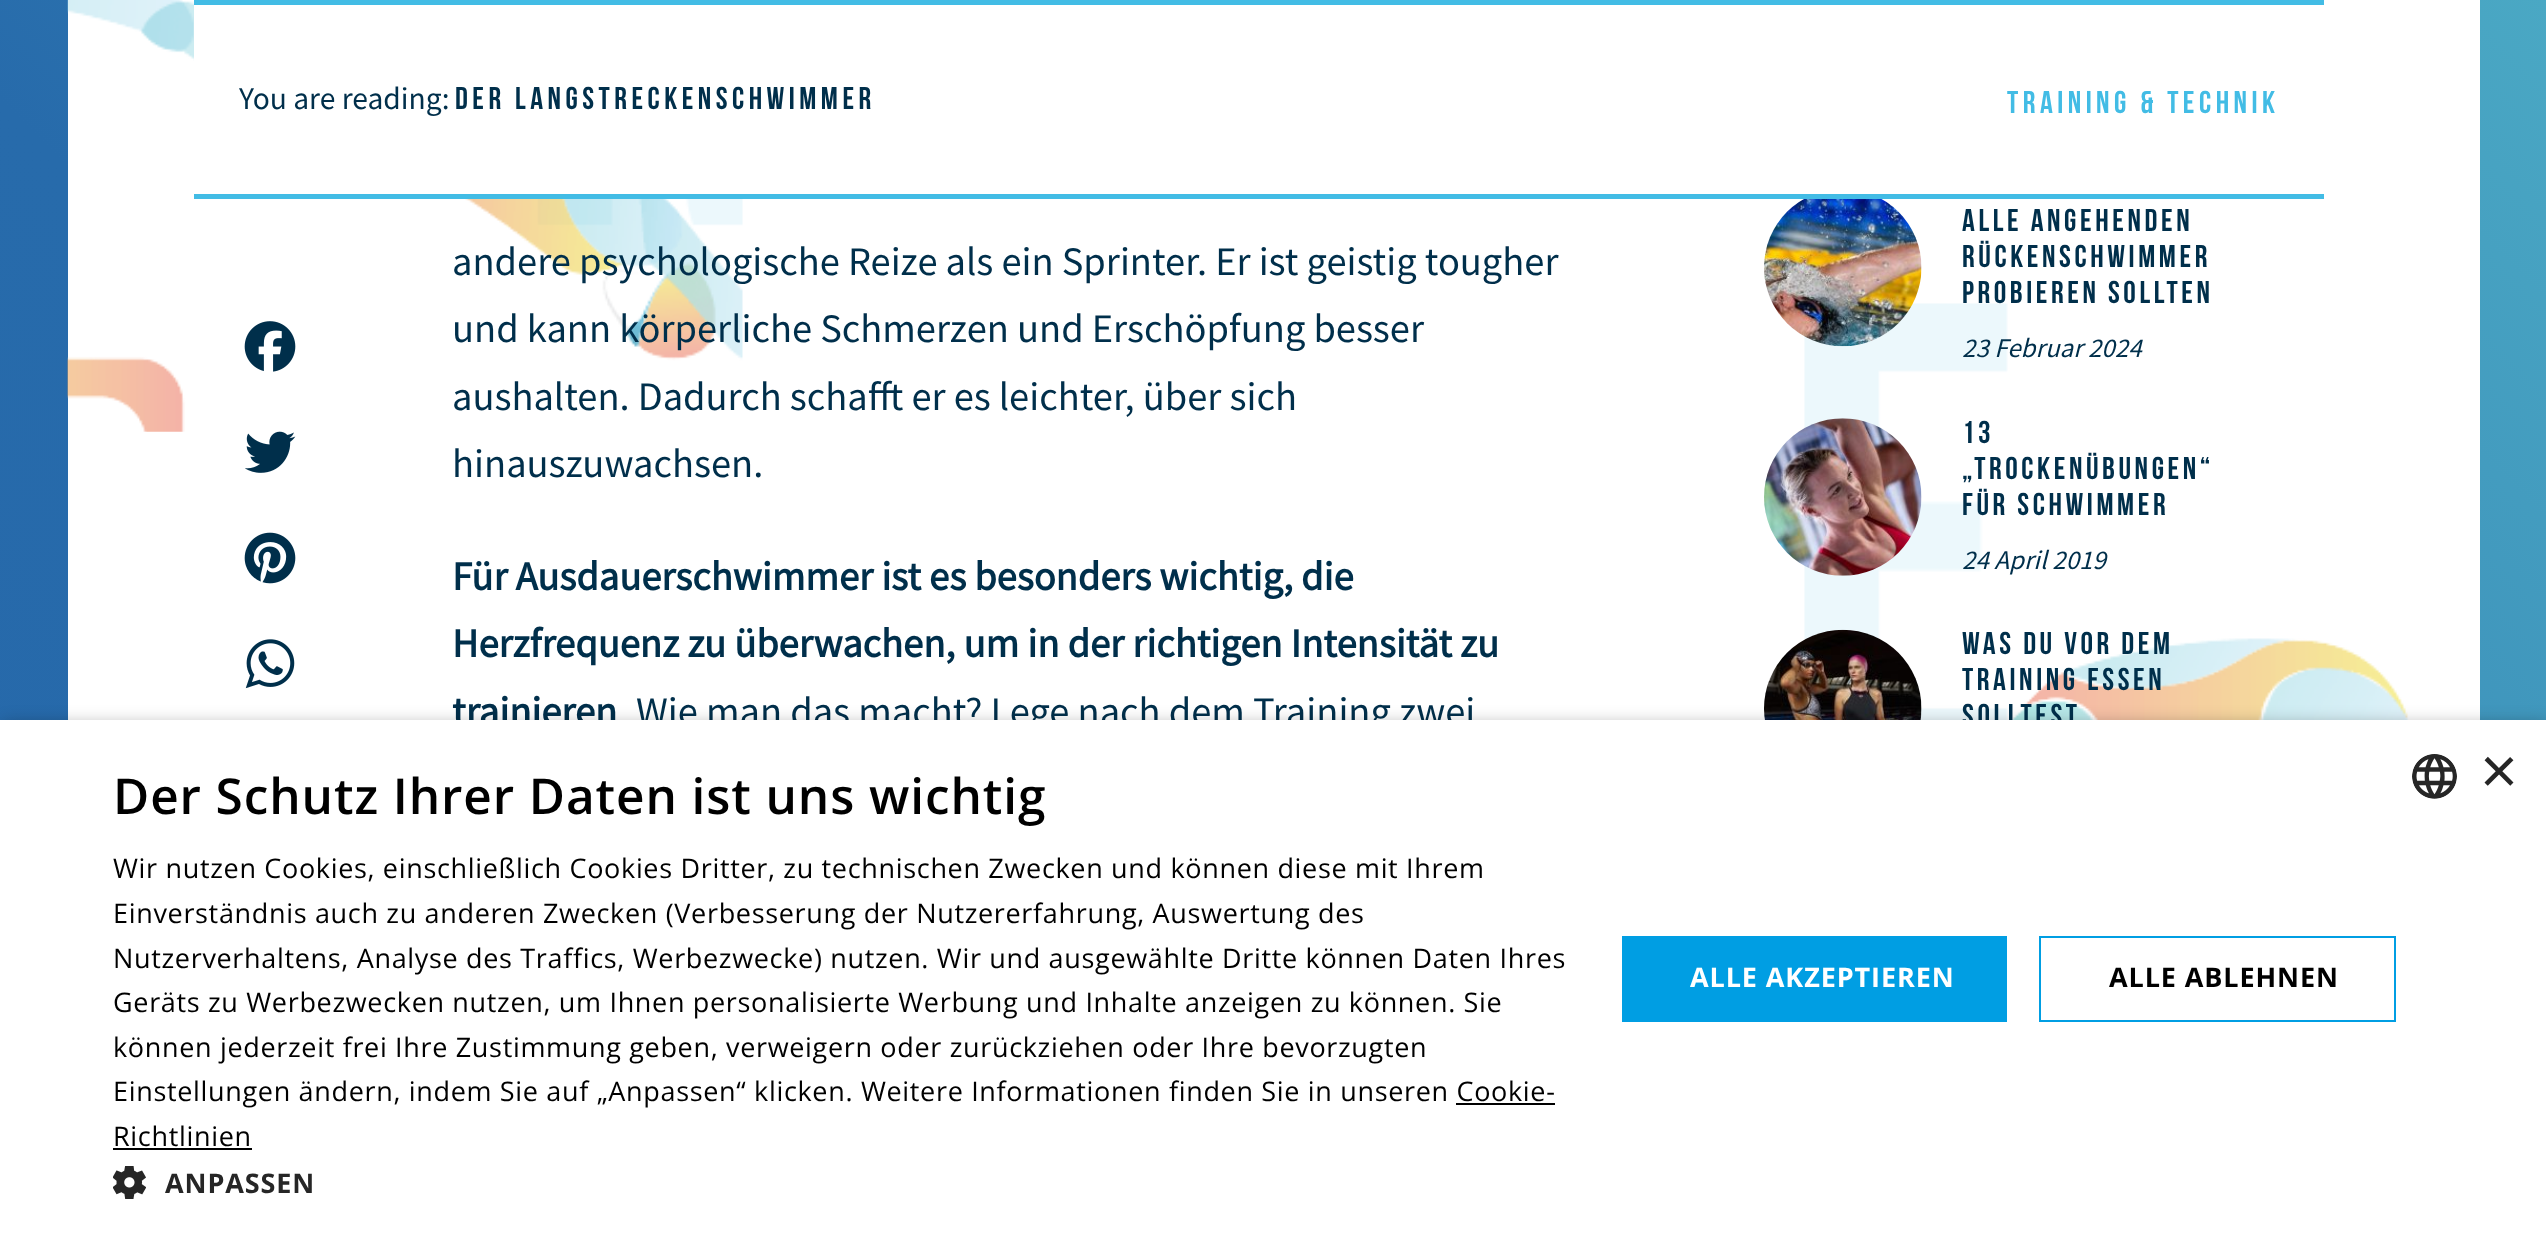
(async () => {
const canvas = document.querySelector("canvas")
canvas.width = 2546
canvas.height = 1237
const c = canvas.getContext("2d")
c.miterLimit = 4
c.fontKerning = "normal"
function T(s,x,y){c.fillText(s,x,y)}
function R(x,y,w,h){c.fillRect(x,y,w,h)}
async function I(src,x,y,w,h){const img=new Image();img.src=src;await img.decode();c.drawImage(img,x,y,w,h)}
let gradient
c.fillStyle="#fff"
R(0,0,2546,1237)
gradient = c.createLinearGradient(327,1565,2220,-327)
gradient.addColorStop(0,"#2668aa")
gradient.addColorStop(.3,"#276bab")
gradient.addColorStop(1,"#4aa8c4")
c.fillStyle = gradient
R(0,0,2546,720)
c.fillStyle="#fff"
R(68,0,2412,720)
await I("1.png",67,0,676,432)
await I("2.png",1804,303,606,417)
R(194,5,549,189)
c.fillStyle="#42bce5"
R(194,0,2130,5)
R(194,194,2130,5)
c.font="31.5px Source Sans Pro"
c.fillStyle="#002f4b"
T("You are reading:",239,109)
c.letterSpacing="4.5px"
c.font="bold 31.5px Bebas Neue"
T("DER LANGSTRECKENSCHWIMMER",455,109)
c.fillStyle="#42bce5"
T("TRAINING & TECHNIK",2007,113)
await I("3.png",244,321,52,51)
await I("4.png",245,431,51,42)
await I("5.png",244,532,52,52)
await I("6.png",245,639,50,50)
c.letterSpacing="0px"
c.font="40.5px Source Sans Pro"
c.fillStyle="#002f4b"
T("andere psychologische Reize als ein Sprinter. Er ist geistig tougher",452,275)
T("und kann körperliche Schmerzen und Erschöpfung besser",452,342)
T("aushalten. Dadurch schafft er es leichter, über sich",452,410)
T("hinauszuwachsen.",452,477)
c.font="bold 40.5px Source Sans Pro"
T("Für Ausdauerschwimmer ist es besonders wichtig, die",452,590)
T("Herzfrequenz zu überwachen, um in der richtigen Intensität zu",452,657)
T("trainieren",452,725)
c.font="40.5px Source Sans Pro"
T("Wie man das macht? Lege nach dem Training zwei",636,725)
await I("7.png",1764,199,158,148)
c.letterSpacing="3.6px"
c.font="bold 31.5px Bebas Neue"
T("alle angehenden",1962,231)
T("Rückenschwimmer",1962,267)
T("probieren sollten",1962,303)
c.letterSpacing="0px"
c.font="italic 27px Source Sans Pro"
T("23 Februar 2024",1962,357)
await I("8.png",1764,418,158,158)
c.letterSpacing="3.6px"
c.font="bold 31.5px Bebas Neue"
T("13",1962,443)
T("„Trockenübungen“",1962,479)
T("für Schwimmer",1962,515)
c.letterSpacing="0px"
c.font="italic 27px Source Sans Pro"
T("24 April 2019",1962,569)
await I("9.png",1764,629,158,91)
c.letterSpacing="3.6px"
c.font="bold 31.5px Bebas Neue"
T("Was du vor dem",1962,654)
T("Training essen",1962,690)
T("solltest",1962,726)
c.fillStyle="#00000059"
c.filter="blur(9px)"
c.beginPath()
c.rect(2,725,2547,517)
c.fill()
c.filter="none"
c.fillStyle="#fff"
R(0,720,2546,517)
await I("10.png",2412,754,45,45)
c.letterSpacing="0px"
c.font="65px Liberation Sans"
c.fillStyle="#262626"
T("×",2480,793)
c.letterSpacing="0.9px"
c.font="600 49.5px Open Sans"
c.fillStyle="#000"
T("Der Schutz Ihrer Daten ist uns wichtig",113,814)
c.letterSpacing="0.67px"
c.font="27px Open Sans"
T("Wir nutzen Cookies, einschließlich Cookies Dritter, zu technischen Zwecken und können diese mit Ihrem",113,878)
T("Einverständnis auch zu anderen Zwecken (Verbesserung der Nutzererfahrung, Auswertung des",113,923)
T("Nutzerverhaltens, Analyse des Traffics, Werbezwecke) nutzen. Wir und ausgewählte Dritte können Daten Ihres",113,968)
T("Geräts zu Werbezwecken nutzen, um Ihnen personalisierte Werbung und Inhalte anzeigen zu können. Sie",113,1012)
T("können jederzeit frei Ihre Zustimmung geben, verweigern oder zurückziehen oder Ihre bevorzugten",113,1057)
T("Einstellungen ändern, indem Sie auf „Anpassen“ klicken. Weitere Informationen finden Sie in unseren Cookie-",113,1101)
T("Richtlinien",113,1146)
R(1456,1103,99,2)
R(113,1148,139,2)
await I("11.png",113,1166,33,33)
c.letterSpacing="0.9px"
c.font="bold 27px Open Sans"
c.fillStyle="#262626"
T("ANPASSEN",165,1193)
c.fillStyle="#009ee3"
R(1622,936,385,86)
c.fillStyle="#fff"
T("ALLE AKZEPTIEREN",1690,987)
c.strokeStyle="#009ee3"
c.lineWidth=2
c.strokeRect(2040,937,355,84)
c.fillStyle="#000"
T("ALLE ABLEHNEN",2109,987)
})()
